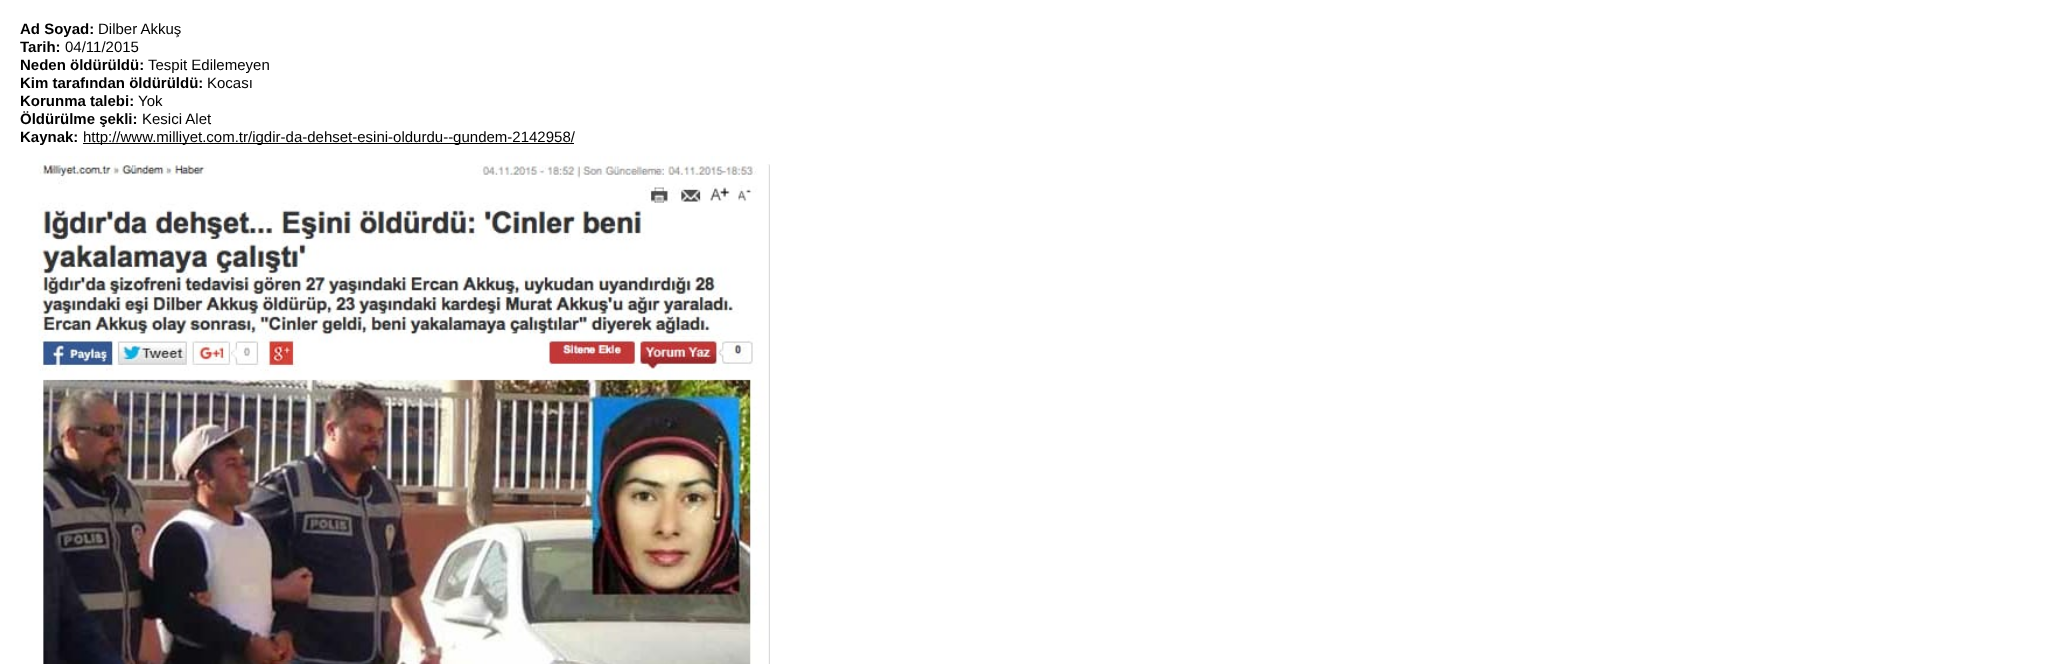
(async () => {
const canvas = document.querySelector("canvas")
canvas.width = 2065
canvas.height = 664
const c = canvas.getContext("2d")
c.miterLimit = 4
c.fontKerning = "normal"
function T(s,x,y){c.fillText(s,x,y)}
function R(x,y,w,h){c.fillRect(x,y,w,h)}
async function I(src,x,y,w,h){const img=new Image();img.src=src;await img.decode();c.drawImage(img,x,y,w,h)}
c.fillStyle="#fff"
R(0,0,2065,664)
c.font="bold 15px Liberation Sans"
c.fillStyle="#000"
T("Ad Soyad:",20,34)
c.font="15px Liberation Sans"
T("Dilber Akkuş",98,34)
c.font="bold 15px Liberation Sans"
T("Tarih:",20,52)
c.font="15px Liberation Sans"
T("04/11/2015",65,52)
c.font="bold 15px Liberation Sans"
T("Neden öldürüldü:",20,70)
c.font="15px Liberation Sans"
T("Tespit Edilemeyen",148,70)
c.font="bold 15px Liberation Sans"
T("Kim tarafından öldürüldü:",20,88)
c.font="15px Liberation Sans"
T("Kocası",207,88)
c.font="bold 15px Liberation Sans"
T("Korunma talebi:",20,106)
c.font="15px Liberation Sans"
T("Yok",138,106)
c.font="bold 15px Liberation Sans"
T("Öldürülme şekli:",20,124)
c.font="15px Liberation Sans"
T("Kesici Alet",142,124)
c.font="bold 15px Liberation Sans"
T("Kaynak:",20,142)
R(83,143,491,1)
c.font="15px Liberation Sans"
T("http://www.milliyet.com.tr/igdir-da-dehset-esini-oldurdu--gundem-2142958/",83,142)
await I("1.png",38,156,732,508)
})()
